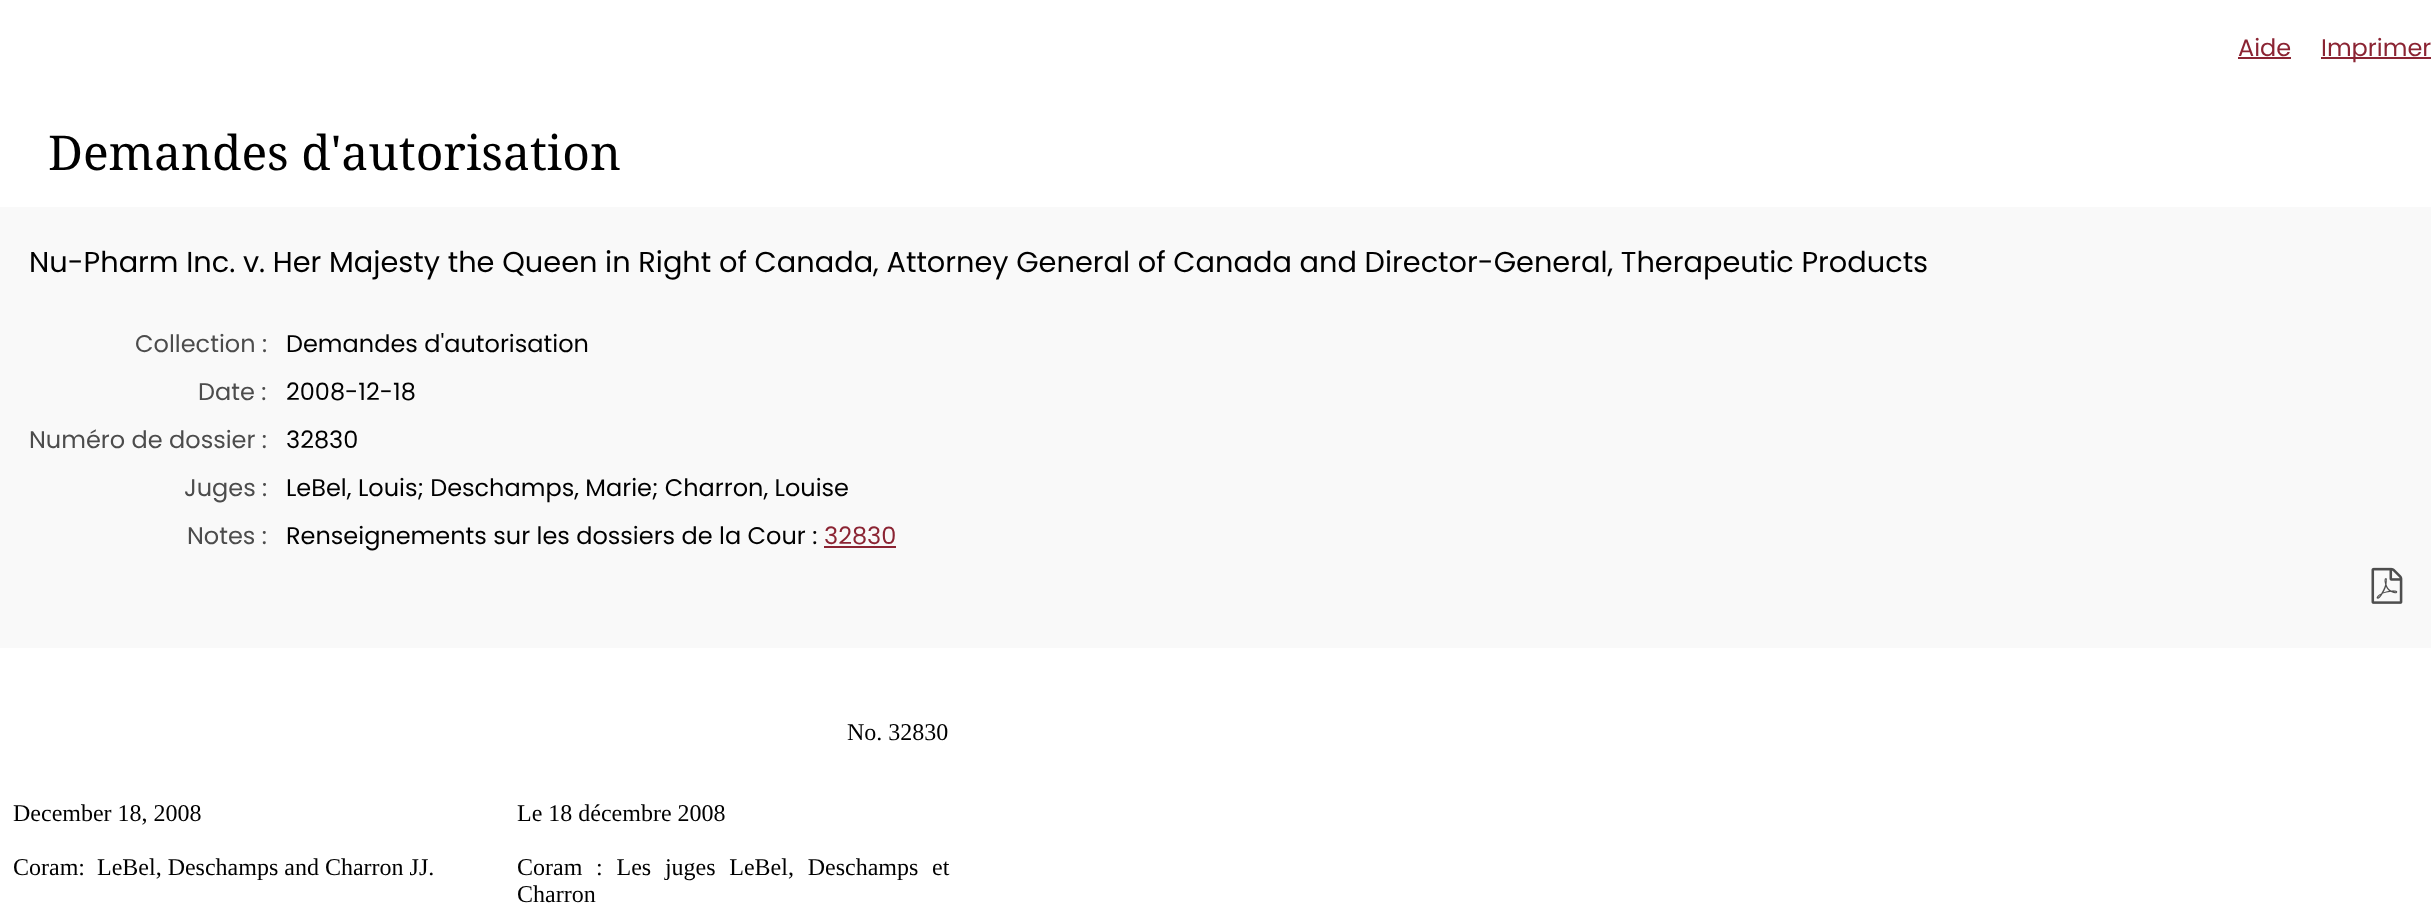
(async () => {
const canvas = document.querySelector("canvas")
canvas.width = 2431
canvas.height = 921
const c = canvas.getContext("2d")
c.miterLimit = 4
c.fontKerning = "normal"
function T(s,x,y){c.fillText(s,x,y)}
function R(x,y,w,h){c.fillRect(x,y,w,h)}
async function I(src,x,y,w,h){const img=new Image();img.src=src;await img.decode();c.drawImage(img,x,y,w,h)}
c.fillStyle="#fff"
R(0,0,2431,921)
c.font="24px Poppins"
c.fillStyle="#8b2433"
T("Aide",2238,56)
R(2238,57,53,2)
R(2321,57,110,2)
T("Imprimer",2321,56)
c.fillStyle="#f9f9f9"
R(0,207,2431,441)
c.font="48px Noto Serif"
c.fillStyle="#000"
T("Demandes d'autorisation",48,170)
c.font="28.8px Poppins"
T("Nu-Pharm Inc. v. Her Majesty the Queen in Right of Canada, Attorney General of Canada and Director-General, Therapeutic Products",29,272)
c.font="24px Poppins"
c.fillStyle="#4c4c4c"
T("Collection :",135,352)
c.fillStyle="#000"
T("Demandes d'autorisation",286,352)
c.fillStyle="#4c4c4c"
T("Date :",198,400)
c.fillStyle="#000"
T("2008-12-18",286,400)
c.fillStyle="#4c4c4c"
T("Numéro de dossier :",29,448)
c.fillStyle="#000"
T("32830",286,448)
c.fillStyle="#4c4c4c"
T("Juges :",184,496)
c.fillStyle="#000"
T("LeBel, Louis; Deschamps, Marie; Charron, Louise",286,496)
c.fillStyle="#4c4c4c"
T("Notes :",187,544)
c.fillStyle="#000"
T("Renseignements sur les dossiers de la Cour :",286,544)
c.fillStyle="#8b2433"
T("32830",824,544)
R(824,546,72,2)
await I("1.png",2371,567,32,37)
c.font="24px Liberation Serif"
c.fillStyle="#000"
T("No. 32830",847,740)
T("December 18, 2008",13,821)
T("Le 18 décembre 2008",517,821)
T("Coram:  LeBel, Deschamps and Charron JJ.",13,875)
c.wordSpacing="7.75px"
T("Coram : Les juges LeBel, Deschamps et",517,875)
c.wordSpacing="0px"
T("Charron",517,902)
})()
